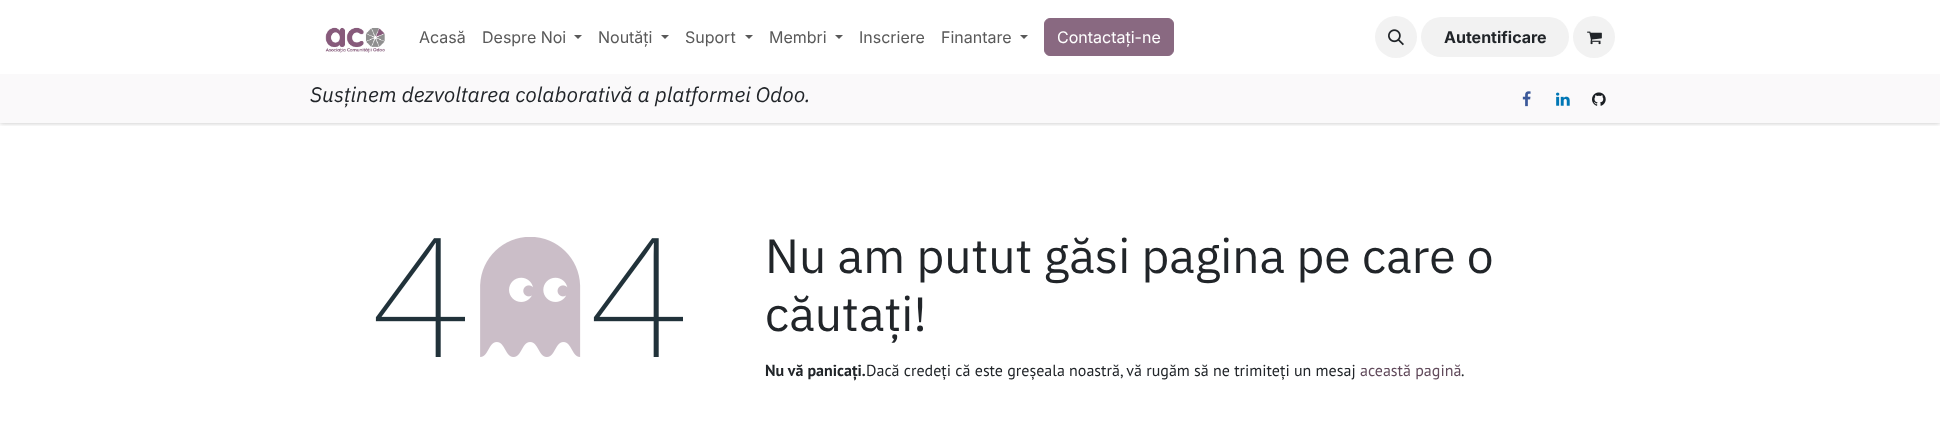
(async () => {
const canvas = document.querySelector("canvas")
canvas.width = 1940
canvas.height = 430
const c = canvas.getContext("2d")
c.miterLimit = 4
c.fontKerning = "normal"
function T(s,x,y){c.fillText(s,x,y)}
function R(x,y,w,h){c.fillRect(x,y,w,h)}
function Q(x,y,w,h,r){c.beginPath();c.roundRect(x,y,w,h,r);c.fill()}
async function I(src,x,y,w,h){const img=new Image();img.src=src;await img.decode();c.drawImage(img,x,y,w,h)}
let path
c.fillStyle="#fff"
R(0,0,1940,430)
c.save()
c.beginPath()
c.rect(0,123,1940,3)
c.clip()
c.fillStyle="#00000040"
c.filter="blur(2.5px)"
c.beginPath()
c.rect(0,0,1940,123)
c.fill()
c.filter="none"
c.restore()
await I("1.png",325,27,60,26)
c.font="16px Inter"
c.fillStyle="#595959"
T("Acasă",419,43)
T("Despre Noi",482,43)
path = new Path2D("M574 35h8l-4 4z")
c.fill(path)
T("Noutăți",598,43)
path = new Path2D("M661 35h8l-4 4z")
c.fill(path)
T("Suport",685,43)
path = new Path2D("M745 35h8l-4 4z")
c.fill(path)
T("Membri",769,43)
path = new Path2D("M835 35h8l-4 4z")
c.fill(path)
T("Inscriere",859,43)
T("Finantare",941,43)
path = new Path2D("M1020 35h8l-4 4z")
c.fill(path)
c.fillStyle="#896981"
c.beginPath()
c.roundRect(1044.5,18.5,129,37,5.5)
c.fill()
c.strokeStyle="#896981"
c.stroke()
c.fillStyle="#fff"
T("Contactați-ne",1057,43)
c.fillStyle="#f2f2f2"
c.beginPath()
c.arc(1396,37,21,0,7)
c.fill()
await I("2.png",1388,29,16,17)
Q(1421,17,148,40,20)
c.font="bold 16px Inter"
c.fillStyle="#212529"
T("Autentificare",1444,43)
c.fillStyle="#f2f2f2"
c.beginPath()
c.arc(1594,37,21,0,7)
c.fill()
await I("3.png",1587,31,15,14)
c.fillStyle="#faf9fa"
R(0,74,1940,49)
c.font="italic 21px IBM Plex Sans"
c.fillStyle="#212529"
T("Susținem dezvoltarea colaborativă a platformei Odoo.",310,102)
await I("4.png",1522,91,9,16)
await I("5.png",1556,92,14,14)
await I("6.png",1592,92,14,14)
await I("7.png",375,237,308,120)
c.font="48px IBM Plex Sans"
T("Nu am putut găsi pagina pe care o",765,273)
T("căutați!",765,331)
c.font="bold 16px PT Sans"
T("Nu vă panicați.",765,376)
c.font="16px PT Sans"
T("Dacă credeți că este greșeala noastră, vă rugăm să ne trimiteți un mesaj",866,376)
c.fillStyle="#614a5b"
T("această pagină",1360,376)
c.fillStyle="#212529"
T(".",1461,376)
})()
